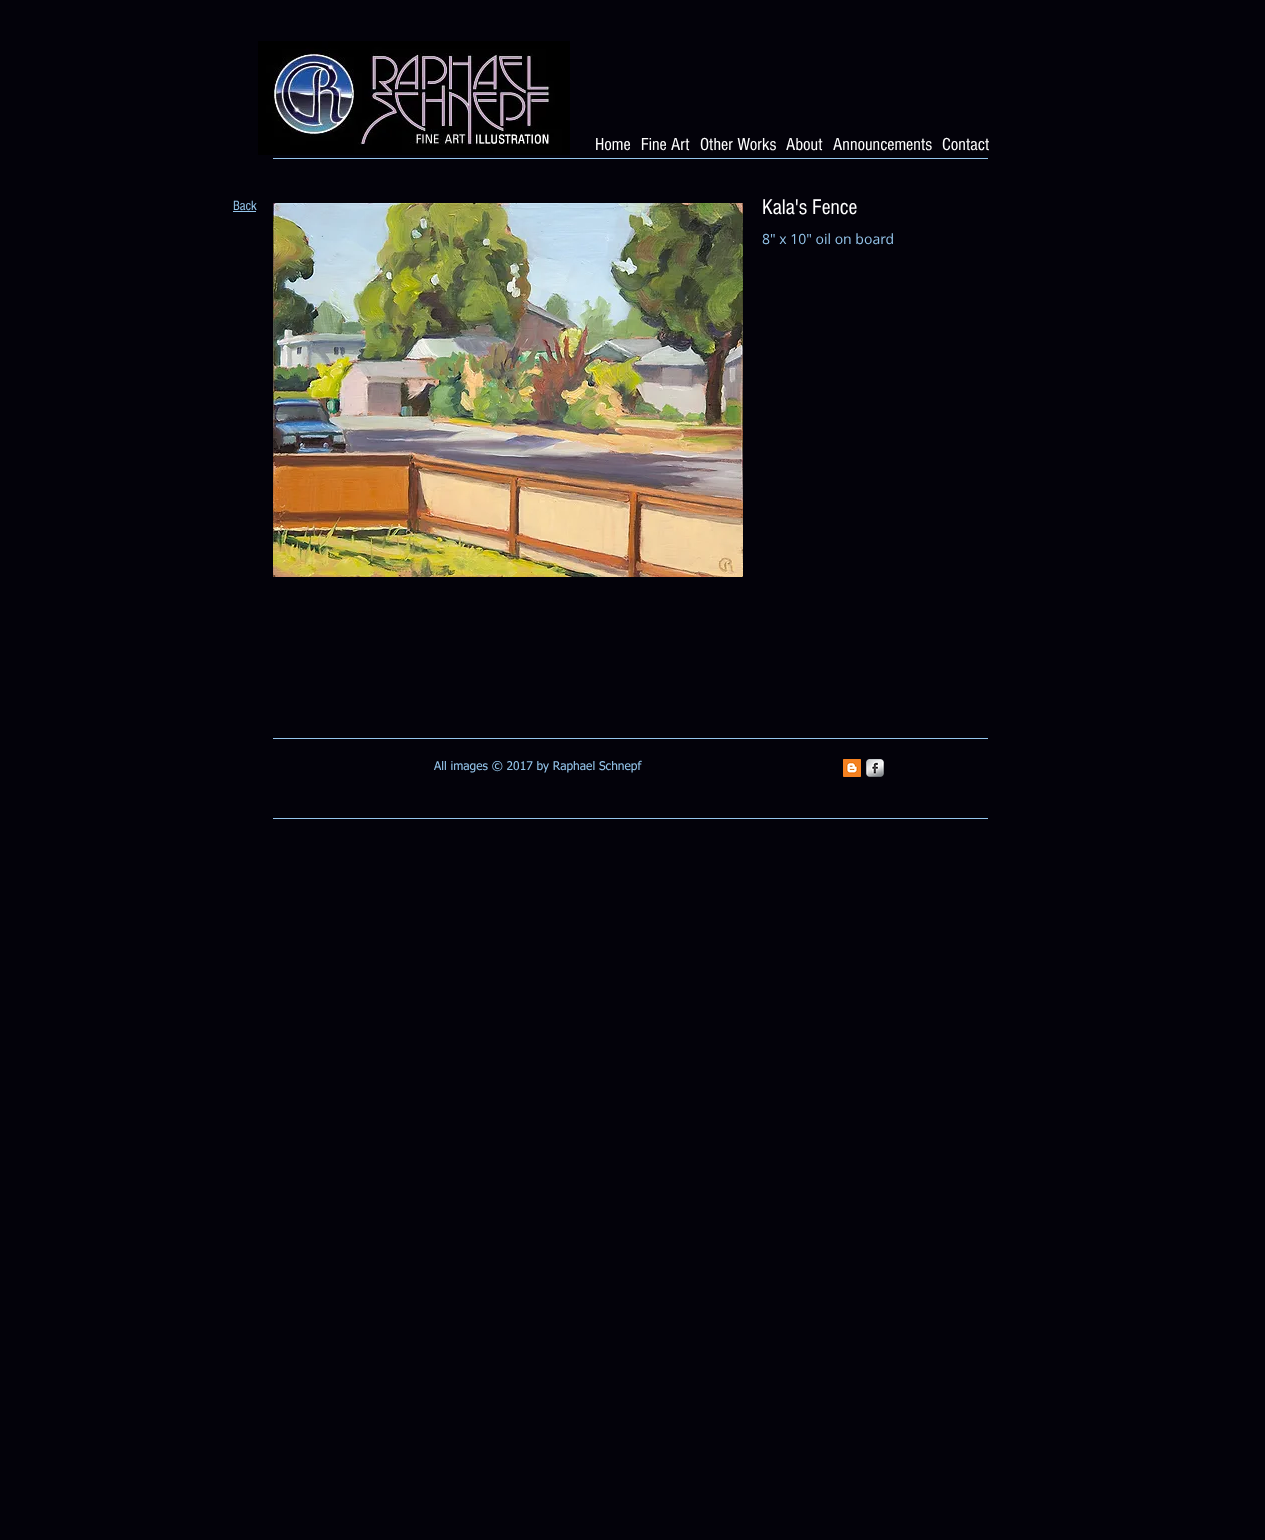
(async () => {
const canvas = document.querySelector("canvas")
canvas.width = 1265
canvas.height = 1540
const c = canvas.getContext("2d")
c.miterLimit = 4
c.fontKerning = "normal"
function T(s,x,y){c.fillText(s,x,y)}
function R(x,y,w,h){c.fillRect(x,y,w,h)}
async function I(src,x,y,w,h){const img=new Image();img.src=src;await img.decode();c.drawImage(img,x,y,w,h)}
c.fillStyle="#03020a"
R(0,0,1265,1540)
await I("1.png",258,41,312,114)
c.font="18px 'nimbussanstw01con'"
c.fillStyle="#fff"
T("Home",595,150)
T("Fine Art",641,150)
T("Other Works",700,150)
T("About",786,150)
T("Announcements",833,150)
T("Contact",942,150)
c.fillStyle="#95c6ec"
R(273,158,715,1)
c.font="14px 'nimbussanstw01con'"
T("Back",233,210)
R(233,211,23,1)
await I("2.png",273,203,470,374)
c.font="22px 'nimbussanstw01con'"
c.fillStyle="#fff"
T("Kala's Fence",762,214)
c.font="14px Open Sans"
c.fillStyle="#95c6ec"
T("8\" x 10\" oil on board",762,244)
R(273,738,715,1)
c.font="12px tahoma"
T("All images © 2017 by Raphael Schnepf",434,770)
await I("3.png",843,759,18,18)
await I("4.png",866,759,18,18)
R(273,818,715,1)
})()
